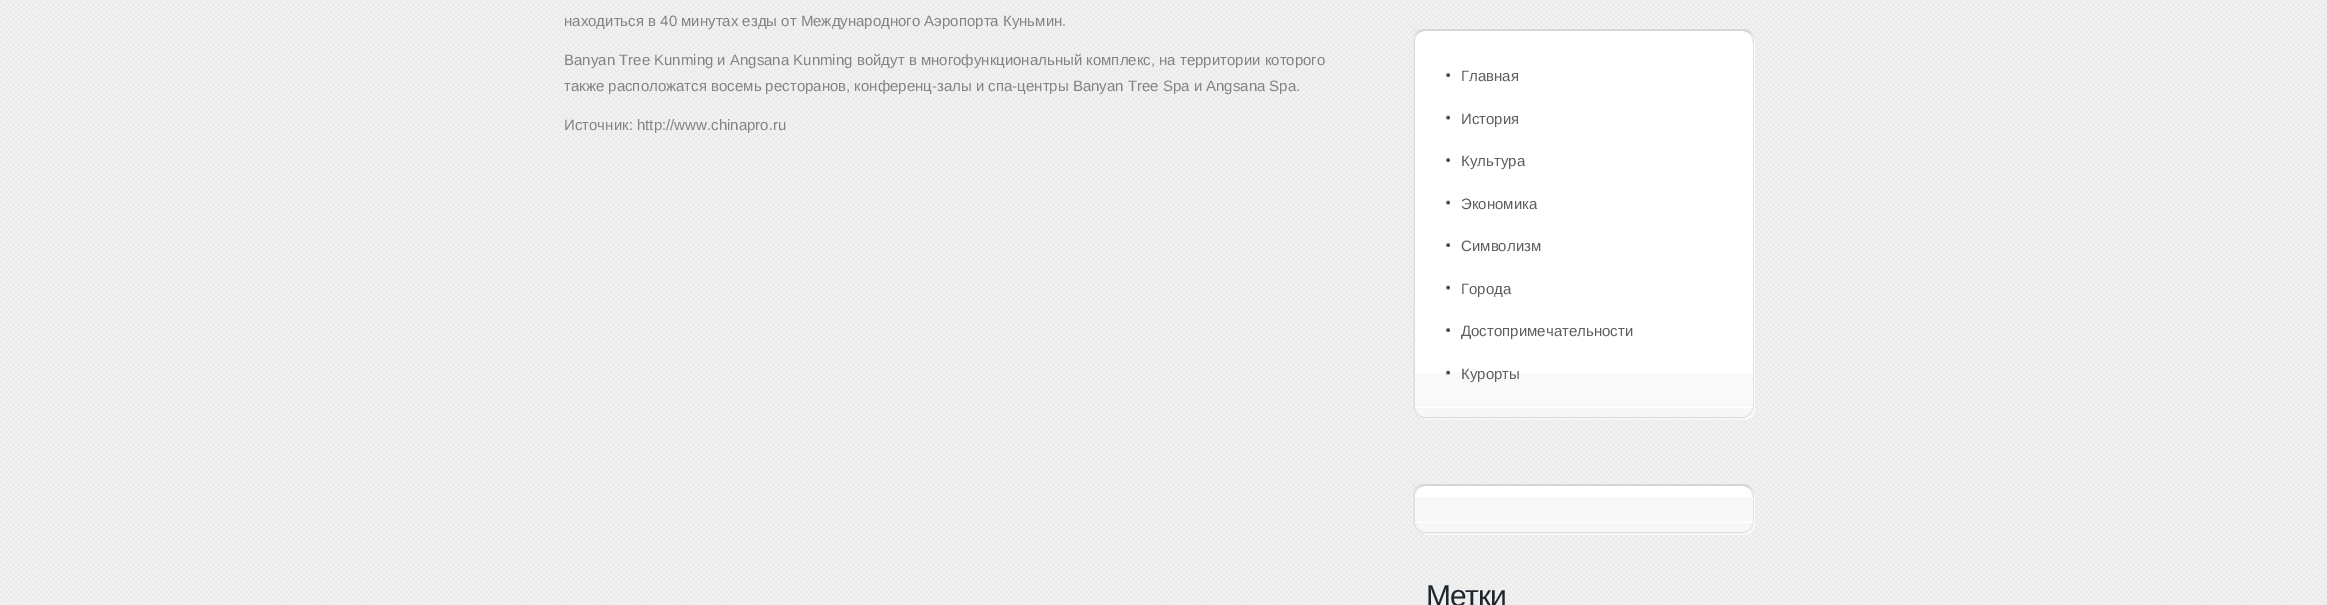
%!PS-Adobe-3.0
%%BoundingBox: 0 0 2327 605
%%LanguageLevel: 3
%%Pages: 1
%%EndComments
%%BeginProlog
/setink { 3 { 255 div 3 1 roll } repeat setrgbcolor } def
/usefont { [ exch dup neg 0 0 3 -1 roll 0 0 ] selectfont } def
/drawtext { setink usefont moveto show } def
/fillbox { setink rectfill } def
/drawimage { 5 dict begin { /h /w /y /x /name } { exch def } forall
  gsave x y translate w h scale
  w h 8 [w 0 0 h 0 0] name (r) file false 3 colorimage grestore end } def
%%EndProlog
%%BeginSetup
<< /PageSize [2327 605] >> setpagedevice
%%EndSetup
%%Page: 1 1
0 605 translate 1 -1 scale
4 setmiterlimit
0 0 2327 605 255 255 255 fillbox
(assets/img1.rgb) 0 0 2327 605 drawimage
(находиться в 40 минутах езды от Международного Аэропорта Куньмин.) 564 26 /LiberationSans-Regular 15 131 131 131 drawtext
(Banyan Tree Kunming и Angsana Kunming войдут в многофункциональный комплекс, на территории которого) 564 65 /LiberationSans-Regular 15 131 131 131 drawtext
(также расположатся восемь ресторанов, конференц-залы и спа-центры Banyan Tree Spa и Angsana Spa.) 564 91 /LiberationSans-Regular 15 131 131 131 drawtext
(Источник: http://www.chinapro.ru) 564 130 /LiberationSans-Regular 15 131 131 131 drawtext
(assets/img2.rgb) 1413 29 342 13 drawimage
(assets/img3.rgb) 1413 307 342 113 drawimage
(assets/img4.rgb) 1413 42 342 365 drawimage
1415 43 338 365 255 255 255 fillbox
1415 373 338 34 249 249 249 fillbox
(assets/img5.rgb) 1446 73 4 4 drawimage
(Главная) 1461 81 /LiberationSans-Regular 15 94 94 94 drawtext
(assets/img6.rgb) 1446 115 4 5 drawimage
(История) 1461 124 /LiberationSans-Regular 15 94 94 94 drawtext
(assets/img5.rgb) 1446 158 4 4 drawimage
(Культура) 1461 166 /LiberationSans-Regular 15 94 94 94 drawtext
(assets/img6.rgb) 1446 200 4 5 drawimage
(Экономика) 1461 209 /LiberationSans-Regular 15 94 94 94 drawtext
(assets/img5.rgb) 1446 243 4 4 drawimage
(Символизм) 1461 251 /LiberationSans-Regular 15 94 94 94 drawtext
(assets/img6.rgb) 1446 285 4 5 drawimage
(Города) 1461 294 /LiberationSans-Regular 15 94 94 94 drawtext
(assets/img5.rgb) 1446 328 4 4 drawimage
(Достопримечательности) 1461 336 /LiberationSans-Regular 15 94 94 94 drawtext
(assets/img7.rgb) 1446 370 4 5 drawimage
(Курорты) 1461 379 /LiberationSans-Regular 15 94 94 94 drawtext
(assets/img2.rgb) 1413 484 342 13 drawimage
(assets/img8.rgb) 1413 497 342 38 drawimage
(assets/img9.rgb) 1413 497 2 25 drawimage
1415 522 338 1 255 255 255 fillbox
1415 497 338 25 248 248 248 fillbox
/LiberationSans-Regular 30 usefont
31 38 45 setink
1426 606 moveto -1.25 0 (Метки) ashow
showpage
%%EOF
